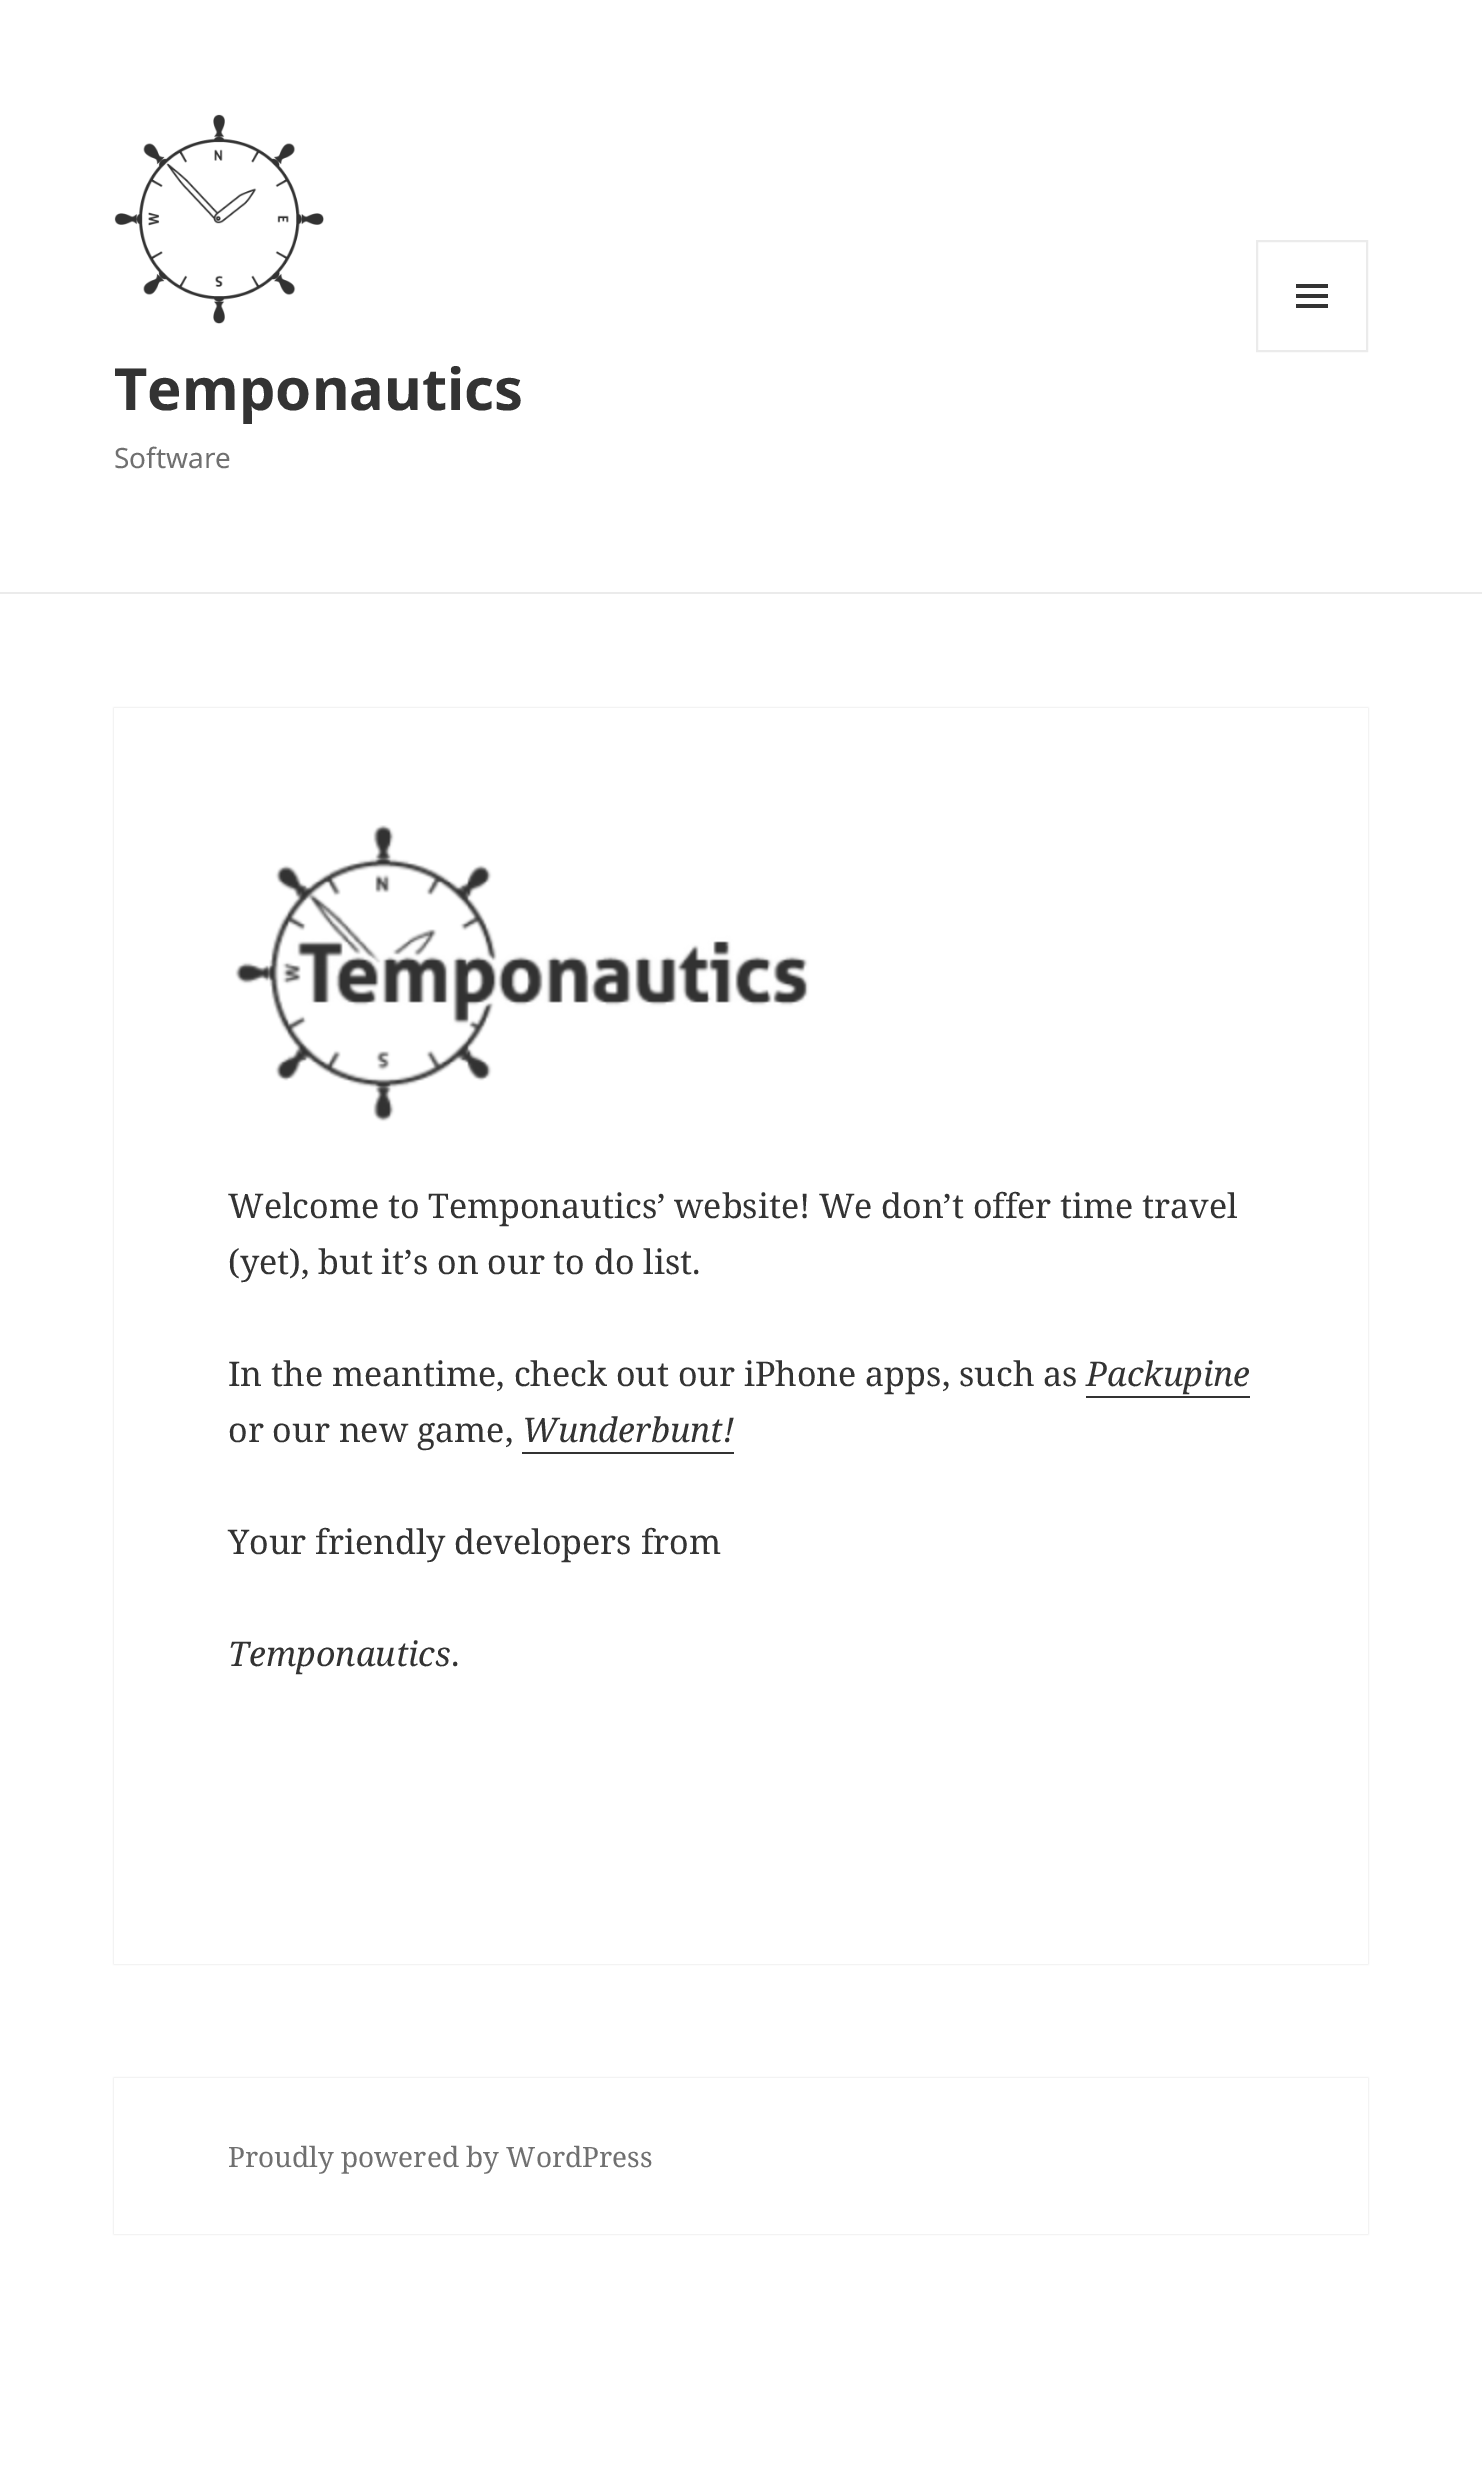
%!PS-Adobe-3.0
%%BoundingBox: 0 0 1482 2479
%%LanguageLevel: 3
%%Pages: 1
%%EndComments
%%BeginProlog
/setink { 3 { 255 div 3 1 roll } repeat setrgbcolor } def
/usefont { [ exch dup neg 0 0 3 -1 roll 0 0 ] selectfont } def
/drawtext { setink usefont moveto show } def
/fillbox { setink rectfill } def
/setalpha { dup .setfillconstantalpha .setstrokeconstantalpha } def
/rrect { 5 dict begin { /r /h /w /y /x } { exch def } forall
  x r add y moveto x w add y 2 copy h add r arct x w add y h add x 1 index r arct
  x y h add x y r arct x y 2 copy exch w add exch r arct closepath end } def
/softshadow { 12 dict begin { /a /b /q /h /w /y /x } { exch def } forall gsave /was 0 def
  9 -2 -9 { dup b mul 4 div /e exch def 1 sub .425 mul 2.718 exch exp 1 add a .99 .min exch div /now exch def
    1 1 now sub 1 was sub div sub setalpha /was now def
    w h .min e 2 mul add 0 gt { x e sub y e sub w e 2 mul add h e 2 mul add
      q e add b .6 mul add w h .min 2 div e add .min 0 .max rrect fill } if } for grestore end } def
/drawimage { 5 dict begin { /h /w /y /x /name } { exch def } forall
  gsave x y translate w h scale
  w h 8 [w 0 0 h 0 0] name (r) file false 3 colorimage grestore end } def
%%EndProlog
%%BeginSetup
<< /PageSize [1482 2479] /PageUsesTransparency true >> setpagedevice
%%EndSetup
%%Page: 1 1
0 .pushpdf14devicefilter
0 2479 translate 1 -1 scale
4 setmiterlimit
0 0 1482 2479 255 255 255 fillbox
0 592 1482 2 235 235 235 fillbox
(assets/img1.rgb) 114 114 210 210 drawimage
2 setlinewidth
1257 241 110 110 rectstroke
(assets/img2.rgb) 1296 284 32 24 drawimage
(Temponautics) 114 410 /NotoSans-Bold 58 51 51 51 drawtext
(Software) 114 468 /NotoSans-Regular 28 112 112 112 drawtext
gsave
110 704 moveto 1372 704 lineto 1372 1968 lineto 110 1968 lineto closepath 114 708 moveto 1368 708 lineto 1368 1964 lineto 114 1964 lineto closepath eoclip newpath
0 0 0 setink
114 708 1254 1256 0 1 0.15 softshadow
grestore
(assets/img3.rgb) 235 825 574 297 drawimage
/NotoSerif-Regular 34 usefont
51 51 51 setink
228 1218 moveto -0.25 0 32 (Welcome to Temponautics’ website! We don’t offer time travel) widthshow
(\(yet\), but it’s on our to do list.) 228 1274 /NotoSerif-Regular 34 51 51 51 drawtext
(In the meantime, check out our iPhone apps, such as) 228 1386 /NotoSerif-Regular 34 51 51 51 drawtext
(Packupine) 1086 1386 /NotoSerif-Italic 34 51 51 51 drawtext
1086 1396 164 2 51 51 51 fillbox
(or our new game,) 228 1442 /NotoSerif-Regular 34 51 51 51 drawtext
(Wunderbunt!) 522 1442 /NotoSerif-Italic 34 51 51 51 drawtext
522 1452 212 2 51 51 51 fillbox
(Your friendly developers from) 228 1554 /NotoSerif-Regular 34 51 51 51 drawtext
(Temponautics) 228 1666 /NotoSerif-Italic 34 51 51 51 drawtext
(.) 451 1666 /NotoSerif-Regular 34 51 51 51 drawtext
gsave
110 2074 moveto 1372 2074 lineto 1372 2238 lineto 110 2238 lineto closepath 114 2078 moveto 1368 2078 lineto 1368 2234 lineto 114 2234 lineto closepath eoclip newpath
0 0 0 setink
114 2078 1254 156 0 1 0.15 softshadow
grestore
(Proudly powered by WordPress) 228 2167 /NotoSerif-Regular 28 112 112 112 drawtext
.poppdf14devicefilter showpage
%%EOF
